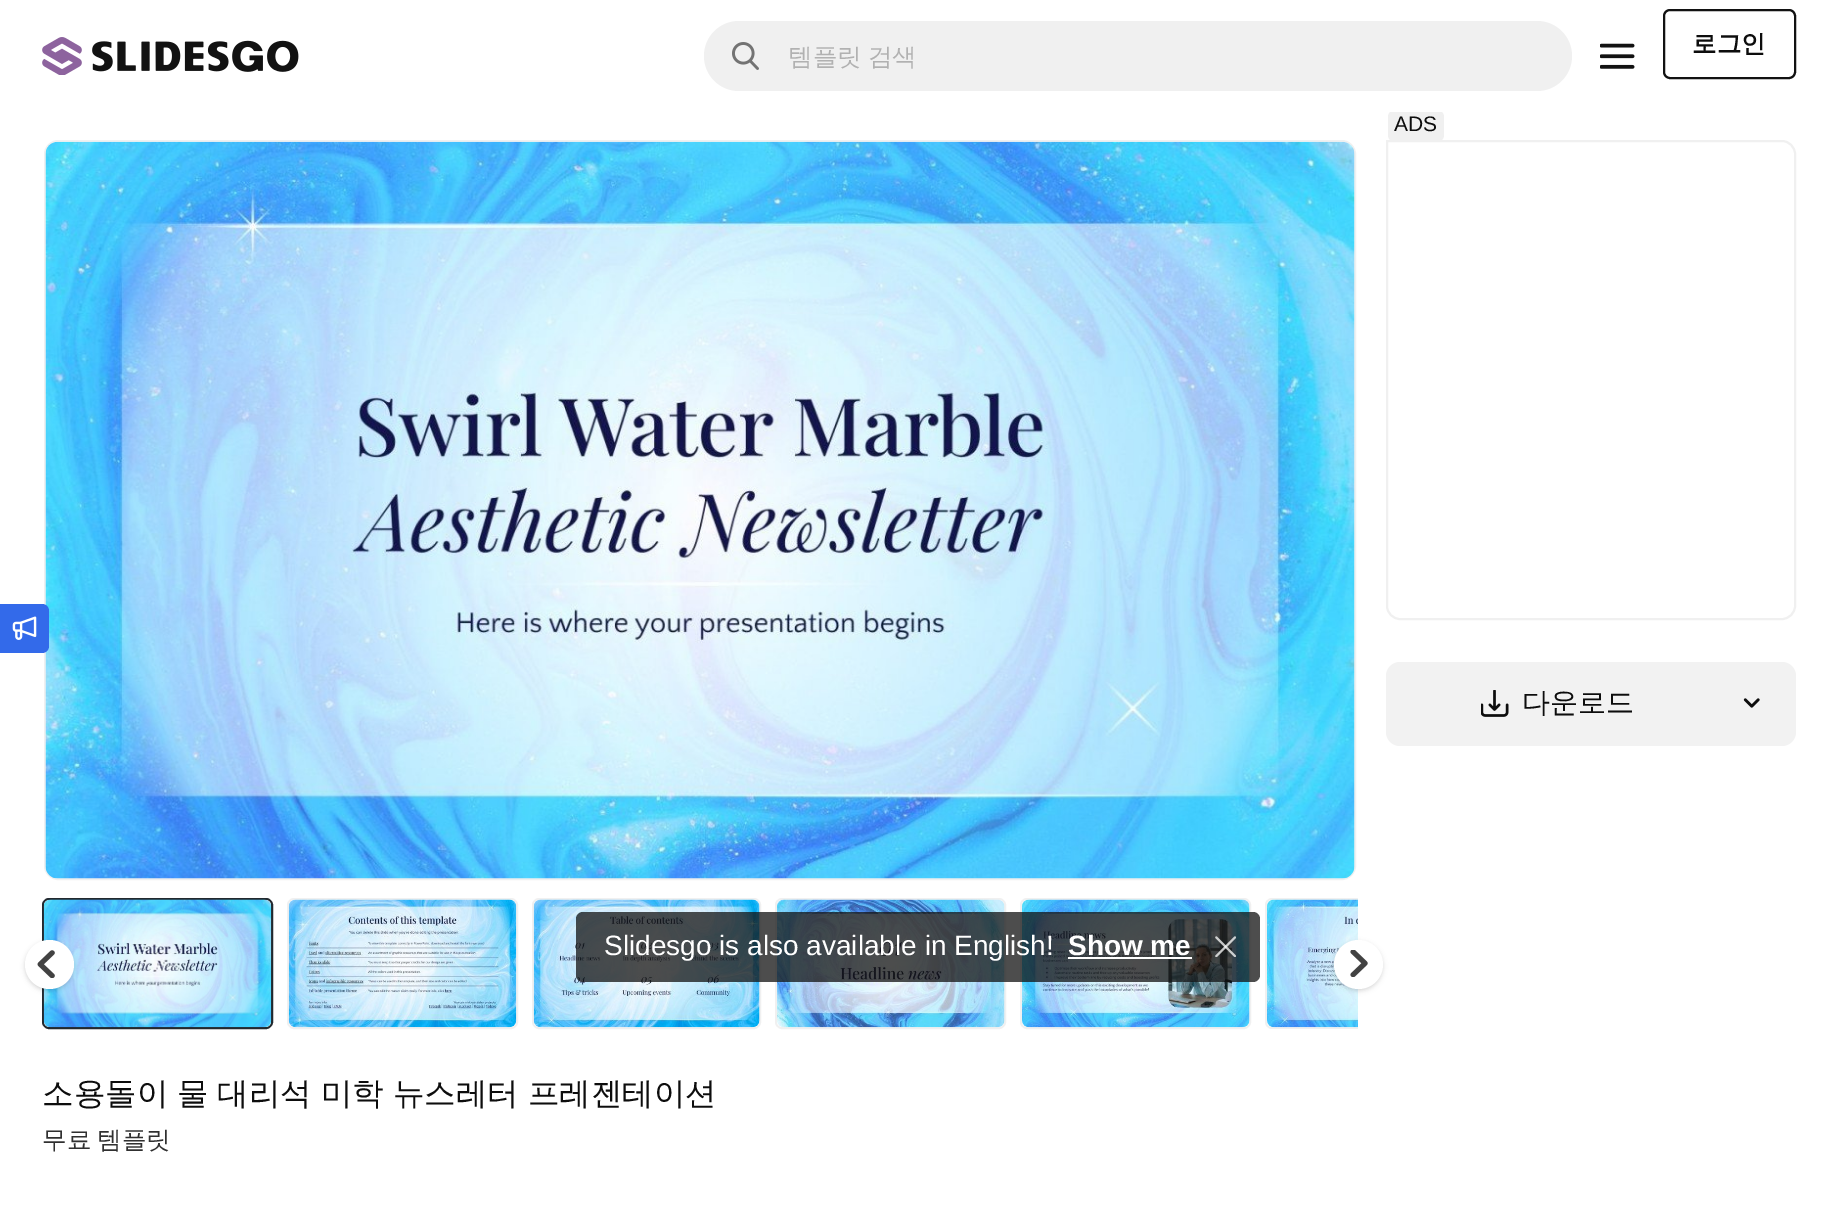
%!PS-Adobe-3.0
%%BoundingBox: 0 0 1837 1205
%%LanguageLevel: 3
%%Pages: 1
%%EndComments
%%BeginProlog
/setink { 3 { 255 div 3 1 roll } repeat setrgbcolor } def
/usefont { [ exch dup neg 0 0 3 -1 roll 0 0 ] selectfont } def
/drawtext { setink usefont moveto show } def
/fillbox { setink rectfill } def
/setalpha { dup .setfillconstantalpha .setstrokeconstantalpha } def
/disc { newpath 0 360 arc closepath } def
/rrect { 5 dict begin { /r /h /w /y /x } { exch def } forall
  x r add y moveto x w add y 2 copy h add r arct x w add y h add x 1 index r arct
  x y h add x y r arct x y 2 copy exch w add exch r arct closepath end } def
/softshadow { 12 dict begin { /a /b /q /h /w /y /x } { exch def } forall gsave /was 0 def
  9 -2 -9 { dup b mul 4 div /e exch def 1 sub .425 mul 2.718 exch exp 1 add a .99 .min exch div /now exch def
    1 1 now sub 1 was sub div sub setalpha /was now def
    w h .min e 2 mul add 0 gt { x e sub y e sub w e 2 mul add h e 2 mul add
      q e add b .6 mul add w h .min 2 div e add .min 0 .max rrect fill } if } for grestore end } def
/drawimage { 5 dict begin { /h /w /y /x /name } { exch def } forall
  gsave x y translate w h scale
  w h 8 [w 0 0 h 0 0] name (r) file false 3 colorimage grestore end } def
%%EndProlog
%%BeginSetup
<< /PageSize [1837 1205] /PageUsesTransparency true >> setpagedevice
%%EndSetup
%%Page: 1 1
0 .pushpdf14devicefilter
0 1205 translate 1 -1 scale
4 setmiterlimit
0 0 1837 1205 255 255 255 fillbox
240 240 240 setink
2 setlinewidth
1387 141 moveto 1782 141 lineto 1789 141 1795 147 1795 154 curveto 1795 606 lineto 1795 613 1789 619 1782 619 curveto 1400 619 lineto 1393 619 1387 613 1387 606 curveto closepath stroke
1388 110 56 32 7 rrect fill
1390 110 52 2 255 255 255 fillbox
(assets/img1.rgb) 42 37 257 38 drawimage
240 240 240 setink
704 21 868 70 35 rrect fill
(assets/img2.rgb) 732 42 27 28 drawimage
/WenQuanYiZenHei-Medium 24.5 usefont
177 177 177 setink
788 65 moveto -1 0 32 (템플릿 검색) widthshow
(assets/img3.rgb) 1600 43 35 26 drawimage
18 18 18 setink
1664 10 131 68 6 rrect stroke
(로그인) 1692 52 /WenQuanYiZenHei-Bold 24.5 13 13 13 drawtext
240 240 240 setink
45 141 1310 738 13 rrect stroke
(assets/img7.rgb) 45 141 1310 738 drawimage
51 106 234 setink
0 604 moveto 42 604 lineto 46 604 49 607 49 611 curveto 49 646 lineto 49 650 46 653 42 653 curveto 0 653 lineto closepath fill
(assets/img4.rgb) 12 616 25 24 drawimage
(ADS) 1394 131 /LiberationSans-Regular 21 13 13 13 drawtext
242 242 242 setink
1386 662 410 84 14 rrect fill
(assets/img5.rgb) 1481 690 28 27 drawimage
(다운로드) 1522 712 /WenQuanYiZenHei-Medium 28 13 13 13 drawtext
(assets/img6.rgb) 1743 698 17 10 drawimage
34 41 47 setink
43 899 229 129 6 rrect stroke
(assets/img8.rgb) 43 899 229 129 drawimage
240 240 240 setink
288 899 229 129 6 rrect stroke
(assets/img9.rgb) 288 899 229 129 drawimage
533 899 227 129 6 rrect stroke
(assets/img10.rgb) 533 899 227 129 drawimage
776 899 229 129 6 rrect stroke
(assets/img11.rgb) 777 899 228 129 drawimage
1021 899 229 129 6 rrect stroke
(assets/img12.rgb) 1022 899 228 129 drawimage
gsave
42 898 1316 131 rectclip
1266 899 229 129 6 rrect stroke
grestore
(assets/img13.rgb) 1267 899 91 129 drawimage
0 0 0 setink
26 943 46 46 23 2 0.1 softshadow
25 942 49 49 24.5 2.5 0.1 softshadow
255 255 255 setink
49.5 964.5 24.5 disc fill
(assets/img14.rgb) 37 950 18 28 drawimage
0 0 0 setink
1335 943 46 46 23 2 0.1 softshadow
1334 942 49 49 24.5 2.5 0.1 softshadow
255 255 255 setink
1358.5 964.5 24.5 disc fill
(assets/img15.rgb) 1350 950 18 27 drawimage
/WenQuanYiZenHei-Medium 31.5 usefont
13 13 13 setink
42 1104 moveto -0.5 0 32 (소용돌이 물 대리석 미학 뉴스레터 프레젠테이션) widthshow
/WenQuanYiZenHei-Medium 24.5 usefont
48 48 48 setink
42 1148 moveto -1 0 32 (무료 템플릿) widthshow
0.75 setalpha
18 18 18 setink
576 912 684 70 7 rrect fill
1 setalpha
(Slidesgo is also available in English!) 604 955 /LiberationSans-Regular 28 255 255 255 drawtext
(Show me) 1068 955 /LiberationSans-Bold 28 255 255 255 drawtext
1068 957 124 2 255 255 255 fillbox
(assets/img16.rgb) 1215 936 21 21 drawimage
.poppdf14devicefilter showpage
%%EOF
